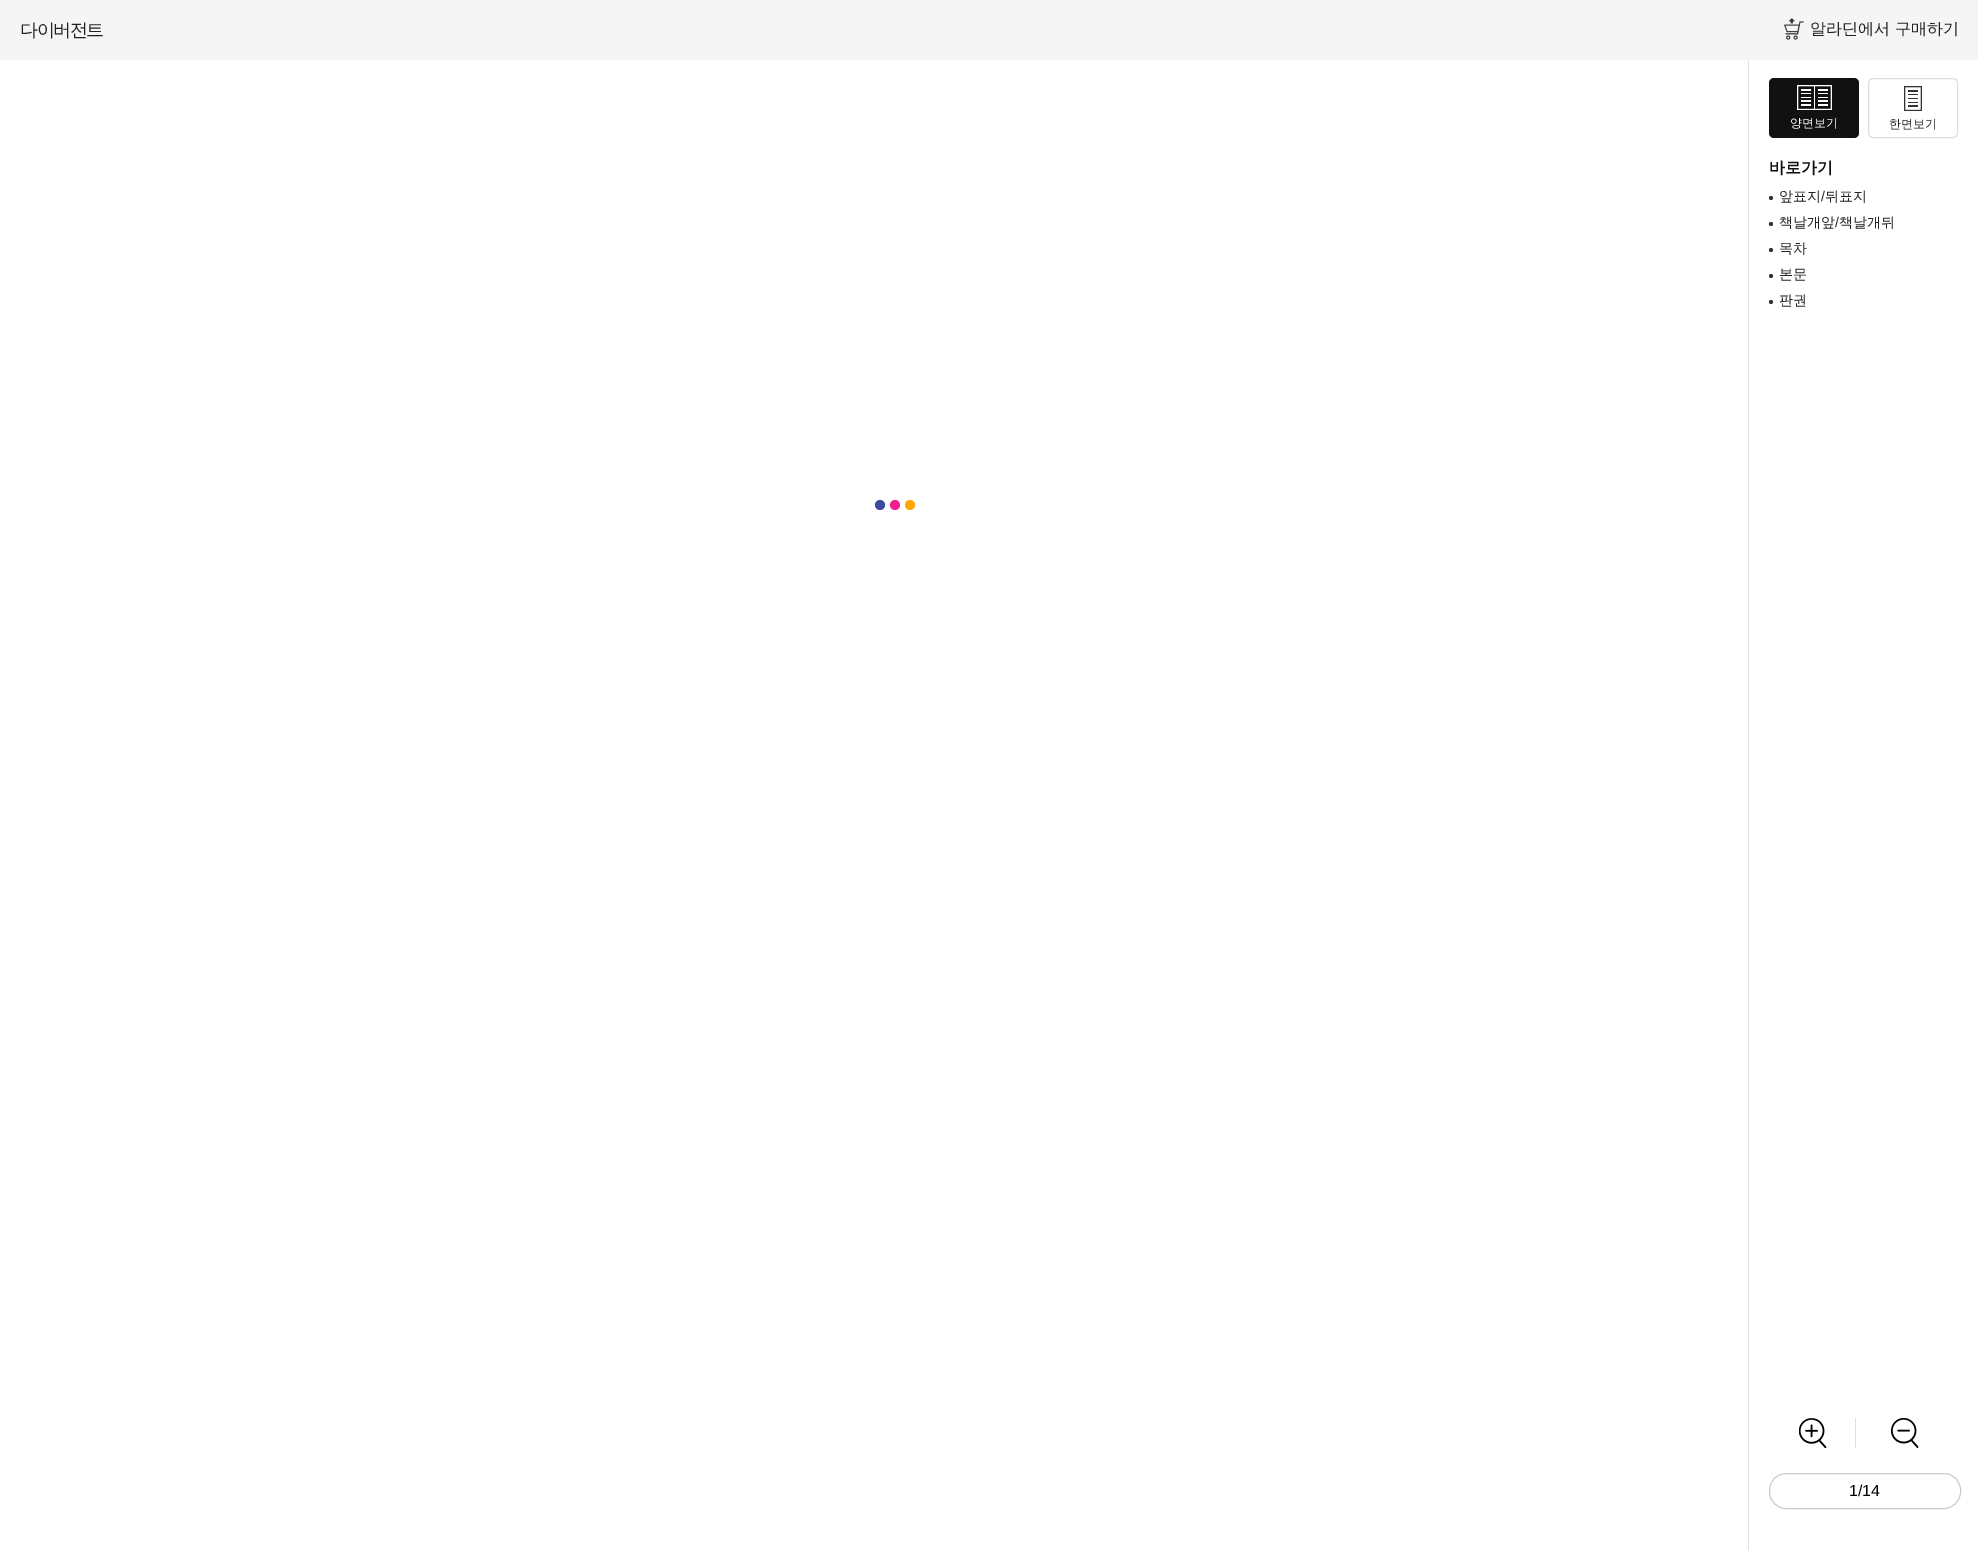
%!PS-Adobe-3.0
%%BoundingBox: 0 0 1978 1550
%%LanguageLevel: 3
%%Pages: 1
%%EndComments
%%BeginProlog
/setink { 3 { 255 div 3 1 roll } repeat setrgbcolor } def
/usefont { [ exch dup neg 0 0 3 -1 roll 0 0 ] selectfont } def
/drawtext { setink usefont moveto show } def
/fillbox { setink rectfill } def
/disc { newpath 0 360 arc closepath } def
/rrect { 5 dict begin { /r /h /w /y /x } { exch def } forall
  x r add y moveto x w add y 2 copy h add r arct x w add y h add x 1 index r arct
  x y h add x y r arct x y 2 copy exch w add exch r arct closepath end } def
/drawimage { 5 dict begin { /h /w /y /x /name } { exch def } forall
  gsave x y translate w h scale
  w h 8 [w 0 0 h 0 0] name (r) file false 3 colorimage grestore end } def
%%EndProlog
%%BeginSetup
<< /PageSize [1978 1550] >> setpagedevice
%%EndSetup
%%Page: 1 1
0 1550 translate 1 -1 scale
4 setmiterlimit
0 0 1978 1550 255 255 255 fillbox
0 0 1978 60 245 245 245 fillbox
/WenQuanYiZenHei-Medium 18 usefont
34 34 34 setink
20 36 moveto -1.5 0 (다이버전트) ashow
(assets/img1.rgb) 1784 18 20 22 drawimage
(알라딘에서 구매하기) 1810 34 /WenQuanYiZenHei-Medium 16 34 34 34 drawtext
1748 60 1 1490 226 226 226 fillbox
17 17 17 setink
1769 78 90 60 5 rrect fill
(assets/img2.rgb) 1797 85 35 25 drawimage
(양면보기) 1790 127 /WenQuanYiZenHei-Medium 12 255 255 255 drawtext
221 221 221 setink
1868.5 78.5 89 59 4.5 rrect stroke
(assets/img3.rgb) 1904 86 18 25 drawimage
(한면보기) 1889 128 /WenQuanYiZenHei-Medium 12 34 34 34 drawtext
(바로가기) 1769 173 /WenQuanYiZenHei-Bold 16 17 17 17 drawtext
51 51 51 setink
1771 198 2 disc fill
(앞표지) 1779 201 /WenQuanYiZenHei-Medium 14 34 34 34 drawtext
(/) 1821 201 /LiberationSans-Regular 14 34 34 34 drawtext
(뒤표지) 1825 201 /WenQuanYiZenHei-Medium 14 34 34 34 drawtext
51 51 51 setink
1771 224 2 disc fill
(책날개앞) 1779 227 /WenQuanYiZenHei-Medium 14 34 34 34 drawtext
(/) 1835 227 /LiberationSans-Regular 14 34 34 34 drawtext
(책날개뒤) 1839 227 /WenQuanYiZenHei-Medium 14 34 34 34 drawtext
51 51 51 setink
1771 250 2 disc fill
(목차) 1779 253 /WenQuanYiZenHei-Medium 14 34 34 34 drawtext
51 51 51 setink
1771 276 2 disc fill
(본문) 1779 279 /WenQuanYiZenHei-Medium 14 34 34 34 drawtext
51 51 51 setink
1771 302 2 disc fill
(판권) 1779 305 /WenQuanYiZenHei-Medium 14 34 34 34 drawtext
(assets/img4.rgb) 1799 1418 28 31 drawimage
1855 1418 1 30 223 223 223 fillbox
(assets/img5.rgb) 1891 1418 28 30 drawimage
204 204 204 setink
1769.5 1473.5 191 35 16.5 rrect stroke
(1/14) 1849 1496 /LiberationSans-Regular 16 0 0 0 drawtext
59 73 158 setink
880 505 5 disc fill
242 29 140 setink
895 505 5 disc fill
255 166 0 setink
910 505 5 disc fill
showpage
%%EOF
